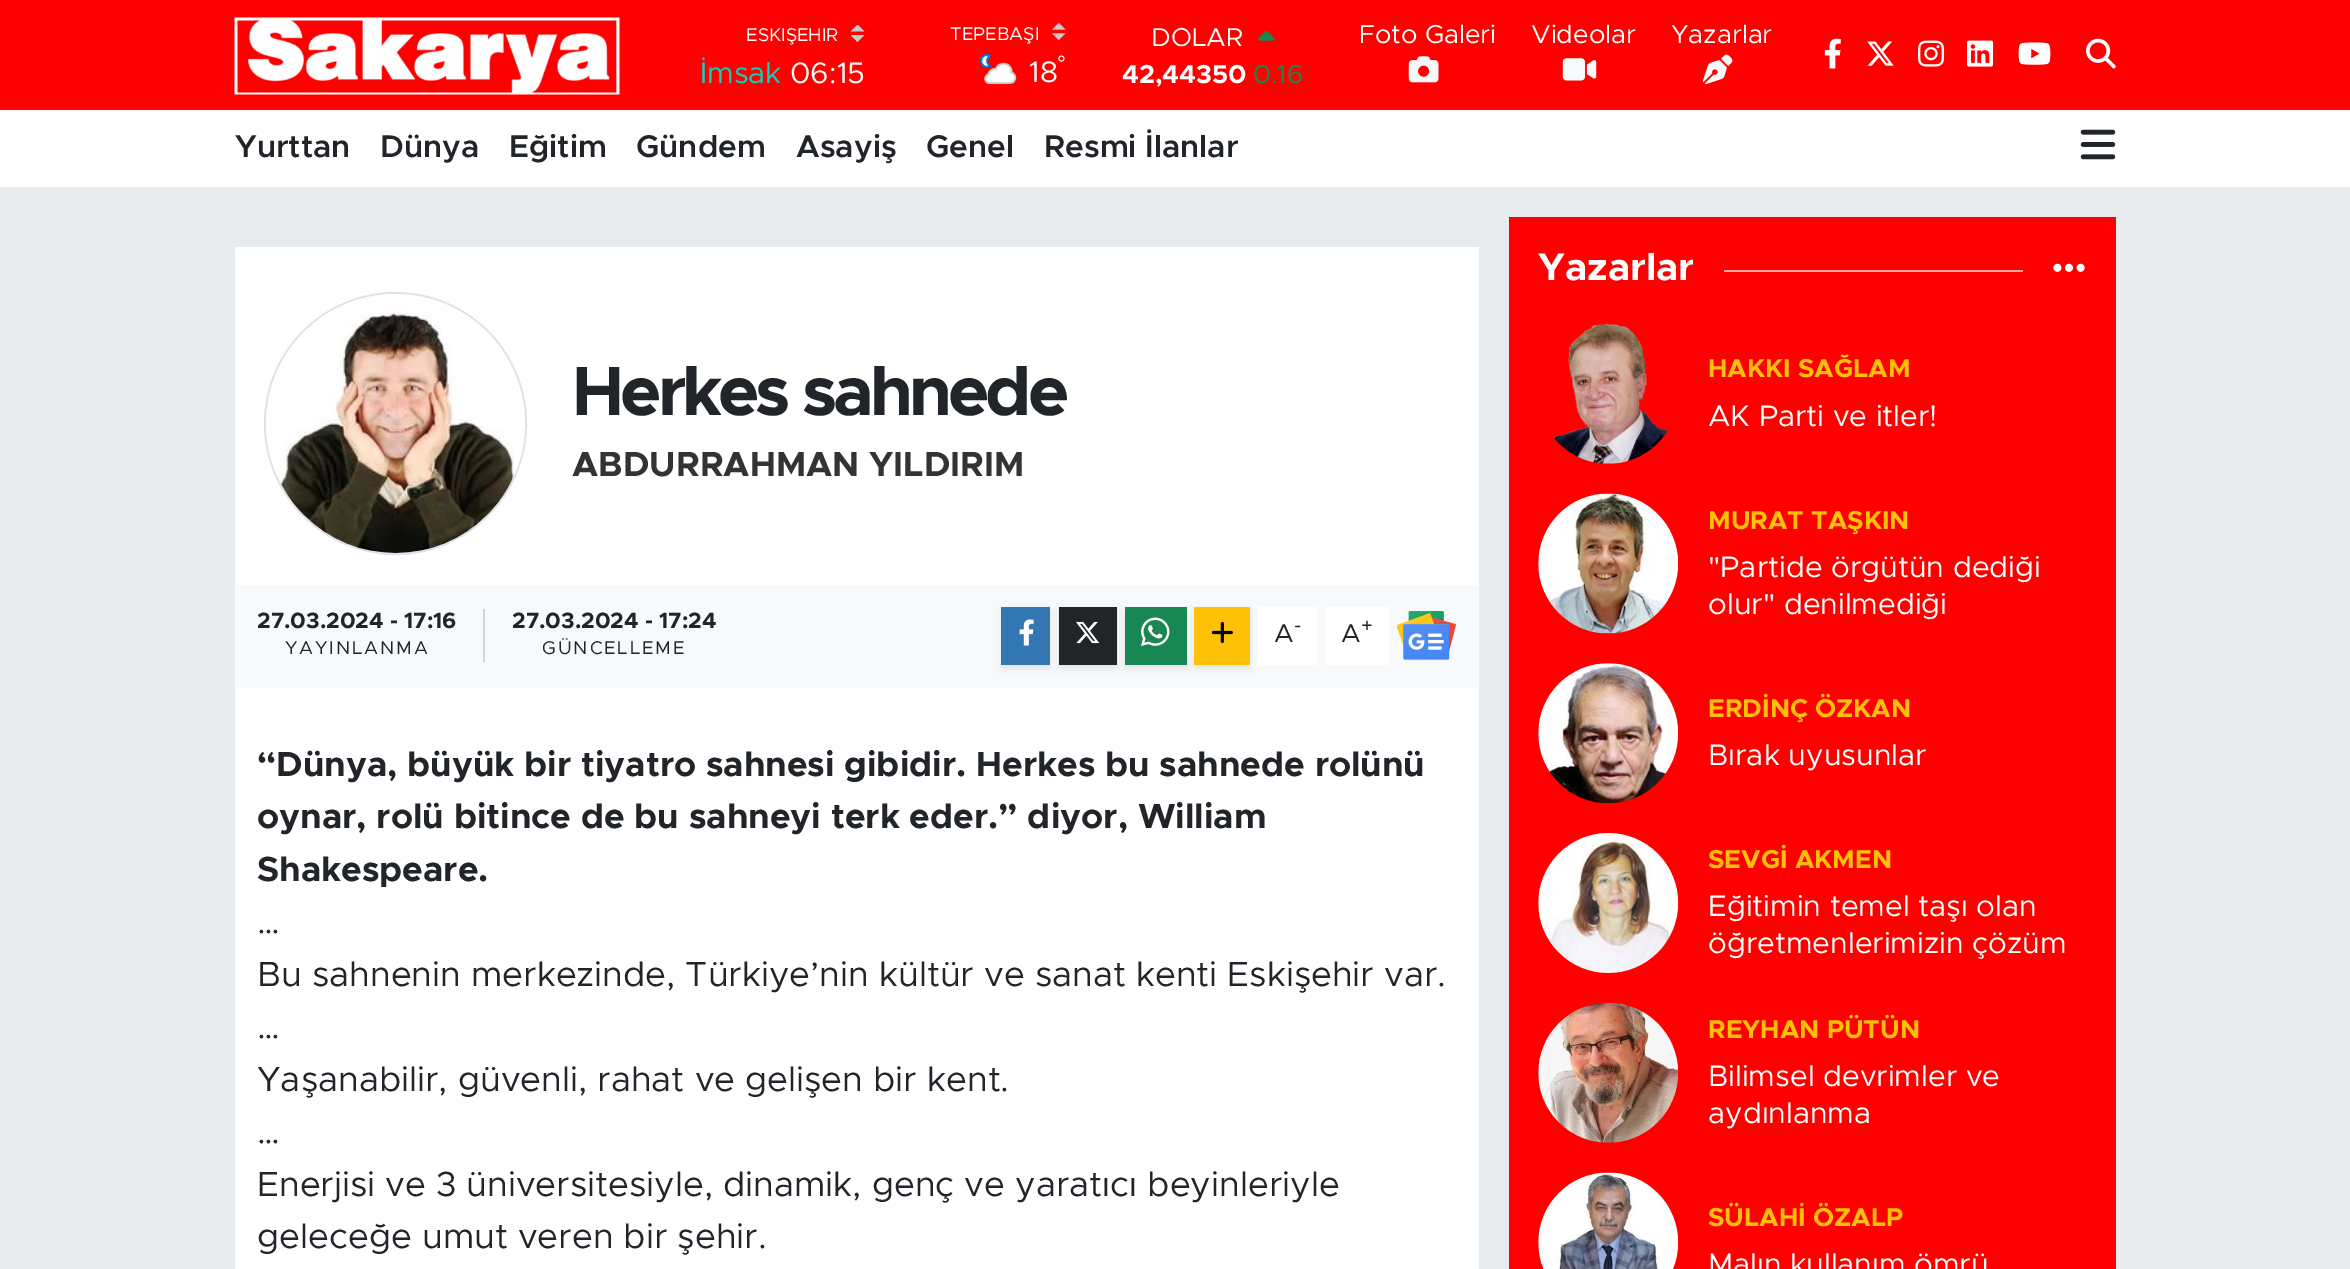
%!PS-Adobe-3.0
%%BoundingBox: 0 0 2350 1269
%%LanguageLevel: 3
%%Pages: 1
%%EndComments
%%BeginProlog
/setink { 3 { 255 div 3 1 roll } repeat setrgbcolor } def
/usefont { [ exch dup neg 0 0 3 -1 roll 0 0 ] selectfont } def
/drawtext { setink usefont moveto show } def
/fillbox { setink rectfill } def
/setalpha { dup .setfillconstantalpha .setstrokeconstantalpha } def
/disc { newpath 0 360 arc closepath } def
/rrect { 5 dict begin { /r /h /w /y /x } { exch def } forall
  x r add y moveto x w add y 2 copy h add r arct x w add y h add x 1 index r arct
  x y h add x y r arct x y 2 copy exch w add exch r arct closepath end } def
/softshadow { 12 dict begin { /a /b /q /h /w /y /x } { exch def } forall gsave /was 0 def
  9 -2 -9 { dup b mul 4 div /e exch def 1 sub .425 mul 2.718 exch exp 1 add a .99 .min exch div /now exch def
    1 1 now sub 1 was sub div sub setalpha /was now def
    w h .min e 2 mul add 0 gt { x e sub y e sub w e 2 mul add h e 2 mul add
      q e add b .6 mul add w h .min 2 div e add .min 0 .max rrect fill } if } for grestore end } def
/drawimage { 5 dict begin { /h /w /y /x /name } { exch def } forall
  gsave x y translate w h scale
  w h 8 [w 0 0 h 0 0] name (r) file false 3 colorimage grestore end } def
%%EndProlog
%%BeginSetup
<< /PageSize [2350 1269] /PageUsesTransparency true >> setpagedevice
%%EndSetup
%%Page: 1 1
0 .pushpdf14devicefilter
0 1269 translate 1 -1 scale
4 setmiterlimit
0 0 2350 1269 233 236 239 fillbox
0 0 2350 110 255 0 0 fillbox
(assets/img1.rgb) 234 17 386 78 drawimage
gsave
851 25 14 17 rectclip
202 202 202 setink
857.5 24.5 moveto 850.5 31.5 lineto 864.5 31.5 lineto closepath 857.5 42 moveto 850.5 35 lineto 864.5 35 lineto closepath fill
grestore
(ESKIŞEHIR) 746 41 /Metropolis-Regular 18.5 255 255 255 drawtext
(İmsak) 700 83 /Metropolis-Regular 29.75 9 210 193 drawtext
(06:15) 790 83 /Metropolis-Regular 29.75 255 255 255 drawtext
(assets/img2.rgb) 1052 23 14 17 drawimage
(TEPEBAŞI) 950 40 /Metropolis-Regular 18.5 255 255 255 drawtext
(assets/img3.rgb) 979 53 38 32 drawimage
(°) 1057 71 /LiberationSans-Regular 22.25 248 249 250 drawtext
(18) 1029 82 /Metropolis-Regular 29.75 255 255 255 drawtext
(DOLAR) 1151 46 /Metropolis-Regular 26 255 255 255 drawtext
(assets/img4.rgb) 1258 31 17 10 drawimage
(42,44350) 1122 83 /Metropolis-Bold 26 255 255 255 drawtext
(0.16) 1253 83 /Metropolis-Regular 26 25 135 84 drawtext
(Foto Galeri) 1359 43 /Metropolis-Regular 26 255 255 255 drawtext
(assets/img5.rgb) 1408 56 31 27 drawimage
(Videolar) 1531 43 /Metropolis-Regular 26 255 255 255 drawtext
(assets/img6.rgb) 1562 58 35 23 drawimage
(Yazarlar) 1671 43 /Metropolis-Regular 26 255 255 255 drawtext
(assets/img7.rgb) 1702 54 31 31 drawimage
(assets/img8.rgb) 1824 38 17 31 drawimage
(assets/img9.rgb) 1867 41 27 25 drawimage
(assets/img10.rgb) 1918 40 27 27 drawimage
(assets/img11.rgb) 1967 40 27 27 drawimage
(assets/img12.rgb) 2018 42 33 23 drawimage
(assets/img13.rgb) 2086 38 30 31 drawimage
0 110 2350 77 255 255 255 fillbox
(Yurttan) 235 157 /Metropolis-SemiBold 31.5 33 37 41 drawtext
(Dünya) 380 157 /Metropolis-SemiBold 31.5 33 37 41 drawtext
(Eğitim) 509 157 /Metropolis-SemiBold 31.5 33 37 41 drawtext
(Gündem) 636 157 /Metropolis-SemiBold 31.5 33 37 41 drawtext
(Asayiş) 796 157 /Metropolis-SemiBold 31.5 33 37 41 drawtext
(Genel) 926 157 /Metropolis-SemiBold 31.5 33 37 41 drawtext
(Resmi İlanlar) 1044 157 /Metropolis-SemiBold 31.5 33 37 41 drawtext
(assets/img14.rgb) 2080 129 36 31 drawimage
235 247 1244 338 255 255 255 fillbox
222 226 230 setink
2 setlinewidth
395.5 423.5 130.5 disc stroke
(assets/img15.rgb) 266 294 259 259 drawimage
/Metropolis-Bold 70 usefont
33 37 41 setink
572 415 moveto -4 0 (Herkes sahnede) ashow
(ABDURRAHMAN YILDIRIM) 572 476 /Metropolis-Bold 35 51 51 51 drawtext
235 585 1244 103 248 249 250 fillbox
483 609 2 53 206 212 218 fillbox
(27.03.2024 - 17:16) 257 628 /Metropolis-Bold 22.25 33 37 41 drawtext
/Metropolis-Regular 18.5 usefont
285 654 moveto 1.9 0 (YAYINLANMA) ashow
(27.03.2024 - 17:24) 512 628 /Metropolis-Bold 22.25 33 37 41 drawtext
/Metropolis-Regular 18.5 usefont
542 654 moveto 1.9 0 (GÜNCELLEME) ashow
0 0 0 setink
1001 611 49 58 0 3.5 0.07 softshadow
1001 607 49 58 50 118 179 fillbox
(assets/img16.rgb) 1019 619 15 27 drawimage
0 0 0 setink
1059 611 58 58 0 3.5 0.07 softshadow
1059 607 58 58 33 37 41 fillbox
(assets/img17.rgb) 1076 621 24 23 drawimage
0 0 0 setink
1125 611 62 58 0 3.5 0.07 softshadow
1125 607 62 58 25 135 84 fillbox
(assets/img18.rgb) 1141 617 29 29 drawimage
1257 607 61 58 255 255 255 fillbox
0 0 0 setink
1194 611 56 58 0 3.5 0.07 softshadow
1194 607 56 58 255 193 7 fillbox
(assets/img19.rgb) 1211 621 22 23 drawimage
(A) 1274 642 /Metropolis-Regular 26 33 37 41 drawtext
(-) 1294 632 /Metropolis-Regular 20 33 37 41 drawtext
1325 607 65 58 255 255 255 fillbox
(A) 1341 642 /Metropolis-Regular 26 33 37 41 drawtext
(+) 1361 632 /Metropolis-Regular 20 33 37 41 drawtext
(assets/img20.rgb) 1397 611 59 49 drawimage
235 688 1244 581 255 255 255 fillbox
(“Dünya, büyük bir tiyatro sahnesi gibidir. Herkes bu sahnede rolünü) 257 776 /Metropolis-Bold 35 33 37 41 drawtext
(oynar, rolü bitince de bu sahneyi terk eder.” diyor, William) 257 828 /Metropolis-Bold 35 33 37 41 drawtext
(Shakespeare.) 257 881 /Metropolis-Bold 35 33 37 41 drawtext
(…) 257 933 /Metropolis-Regular 35 33 37 41 drawtext
(Bu sahnenin merkezinde, Türkiye’nin kültür ve sanat kenti Eskişehir var.) 257 986 /Metropolis-Regular 35 33 37 41 drawtext
(…) 257 1038 /Metropolis-Regular 35 33 37 41 drawtext
(Yaşanabilir, güvenli, rahat ve gelişen bir kent.) 257 1091 /Metropolis-Regular 35 33 37 41 drawtext
(…) 257 1143 /Metropolis-Regular 35 33 37 41 drawtext
(Enerjisi ve 3 üniversitesiyle, dinamik, genç ve yaratıcı beyinleriyle) 257 1196 /Metropolis-Regular 35 33 37 41 drawtext
(geleceğe umut veren bir şehir.) 257 1248 /Metropolis-Regular 35 33 37 41 drawtext
1509 217 607 1052 255 0 0 fillbox
(Yazarlar) 1538 280 /Metropolis-Bold 38.5 255 255 255 drawtext
1724 270 299 2 244 167 167 fillbox
(assets/img21.rgb) 2053 263 32 9 drawimage
(assets/img22.rgb) 1554 323 114 141 drawimage
(HAKKI SAĞLAM) 1708 377 /Metropolis-Bold 26 255 193 7 drawtext
(AK Parti ve itler!) 1708 426 /Metropolis-Regular 29.75 255 255 255 drawtext
(assets/img23.rgb) 1538 493 141 141 drawimage
(MURAT TAŞKIN) 1708 529 /Metropolis-Bold 26 255 193 7 drawtext
("Partide örgütün dediği) 1708 577 /Metropolis-Regular 29.75 255 255 255 drawtext
(olur" denilmediği) 1708 614 /Metropolis-Regular 29.75 255 255 255 drawtext
(assets/img24.rgb) 1538 663 141 141 drawimage
(ERDİNÇ ÖZKAN) 1708 717 /Metropolis-Bold 26 255 193 7 drawtext
(Bırak uyusunlar) 1708 765 /Metropolis-Regular 29.75 255 255 255 drawtext
(assets/img25.rgb) 1538 833 141 140 drawimage
(SEVGİ AKMEN) 1708 868 /Metropolis-Bold 26 255 193 7 drawtext
(Eğitimin temel taşı olan) 1708 916 /Metropolis-Regular 29.75 255 255 255 drawtext
(öğretmenlerimizin çözüm) 1708 953 /Metropolis-Regular 29.75 255 255 255 drawtext
(assets/img26.rgb) 1538 1002 141 141 drawimage
(REYHAN PÜTÜN) 1708 1038 /Metropolis-Bold 26 255 193 7 drawtext
(Bilimsel devrimler ve) 1708 1086 /Metropolis-Regular 29.75 255 255 255 drawtext
(aydınlanma) 1708 1123 /Metropolis-Regular 29.75 255 255 255 drawtext
(assets/img27.rgb) 1538 1172 141 97 drawimage
(SÜLAHİ ÖZALP) 1708 1226 /Metropolis-Bold 26 255 193 7 drawtext
(Malın kullanım ömrü) 1708 1274 /Metropolis-Regular 29.75 255 255 255 drawtext
.poppdf14devicefilter showpage
%%EOF
